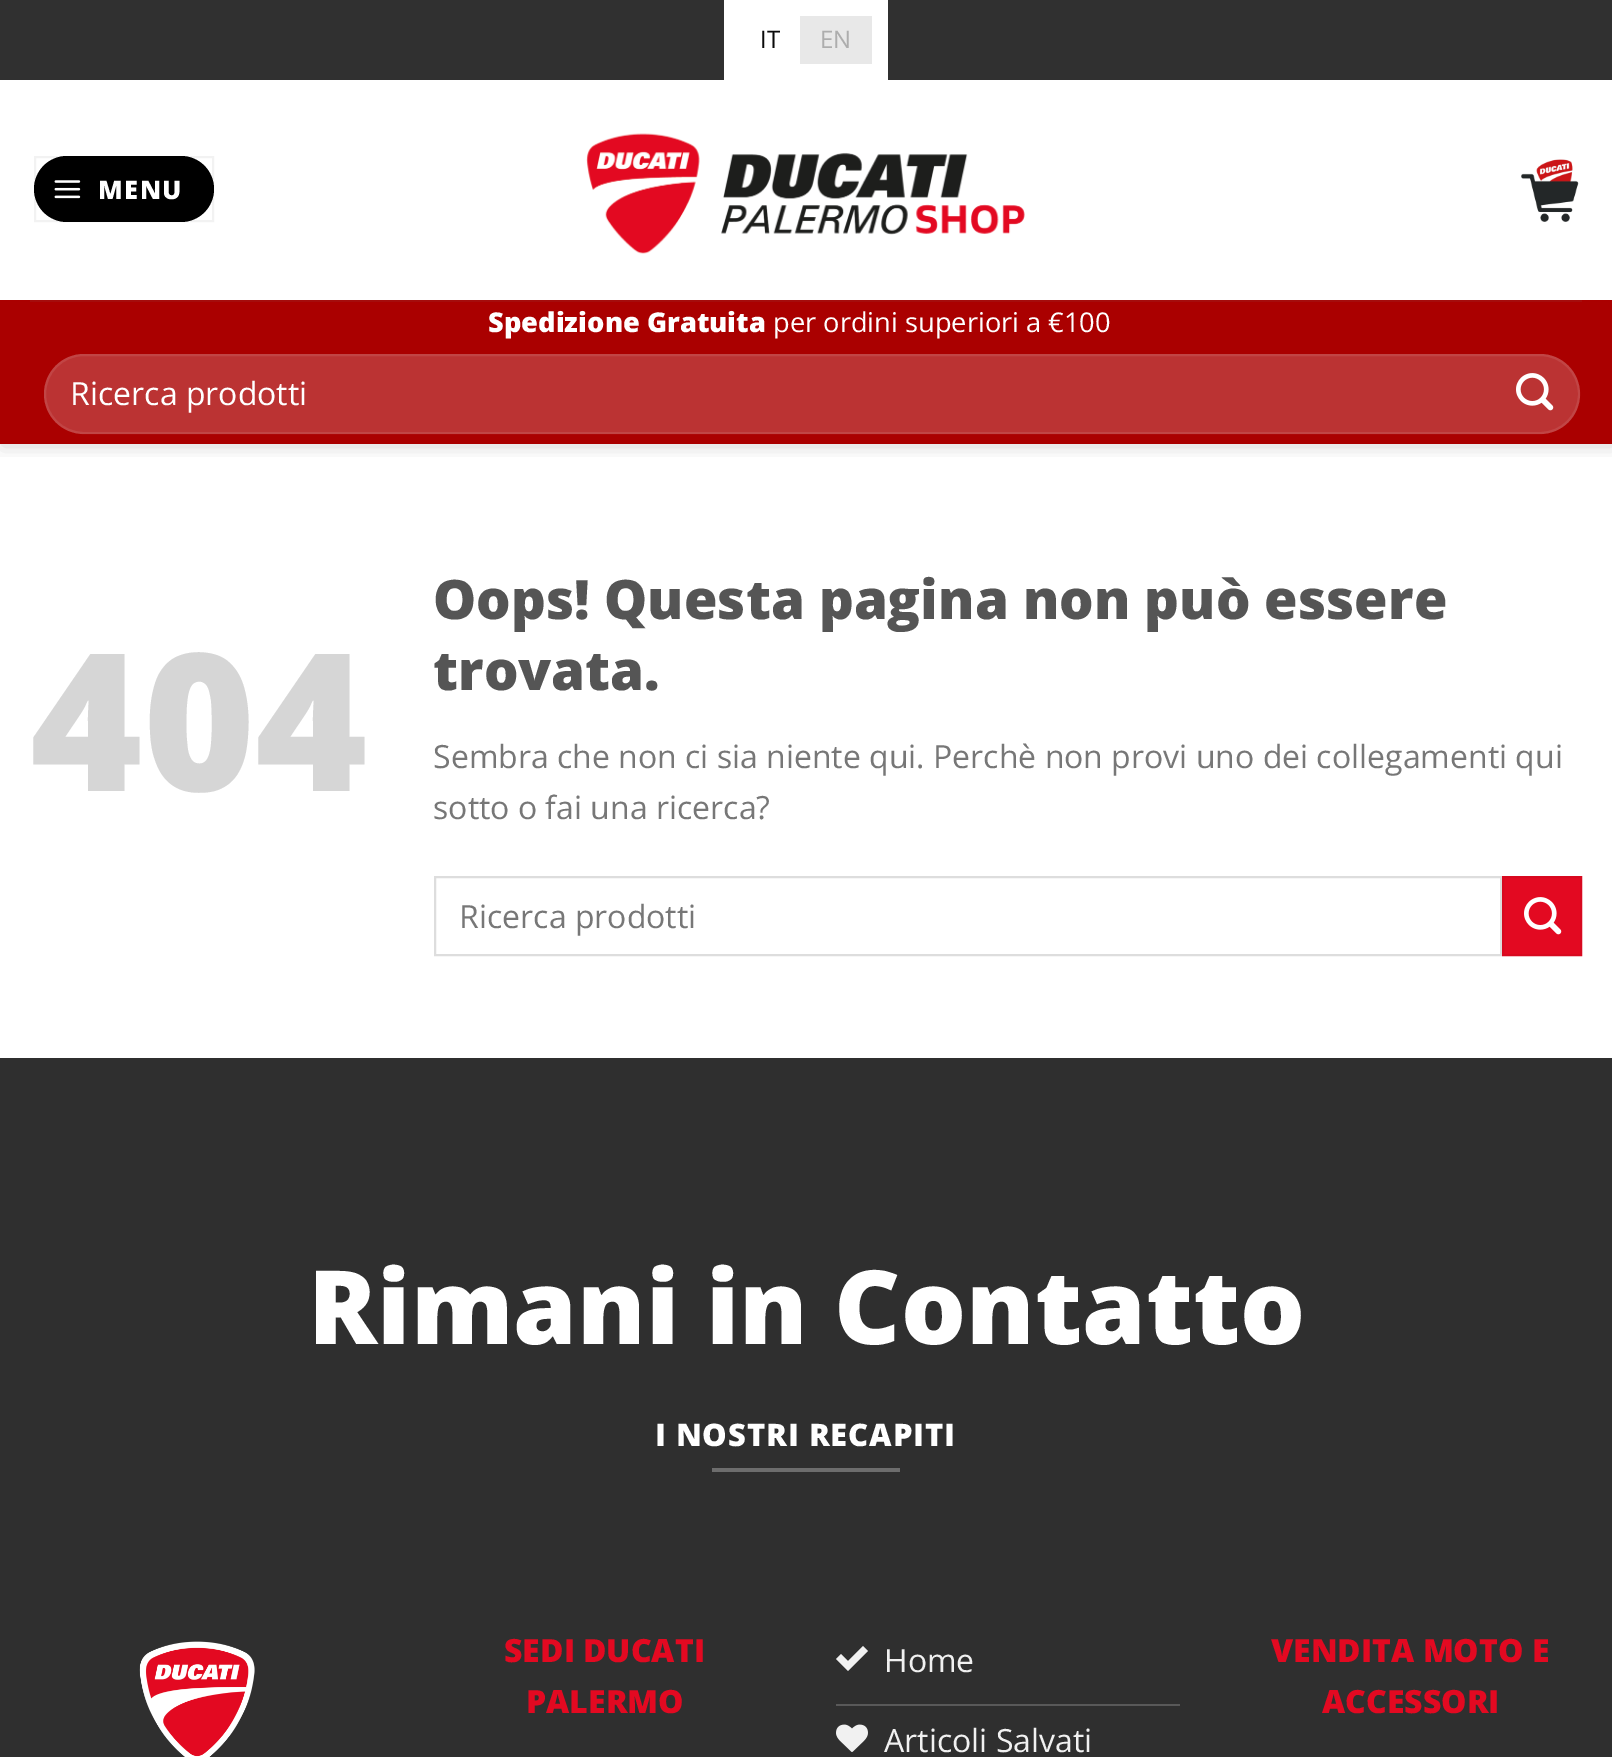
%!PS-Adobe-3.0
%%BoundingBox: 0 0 1612 1757
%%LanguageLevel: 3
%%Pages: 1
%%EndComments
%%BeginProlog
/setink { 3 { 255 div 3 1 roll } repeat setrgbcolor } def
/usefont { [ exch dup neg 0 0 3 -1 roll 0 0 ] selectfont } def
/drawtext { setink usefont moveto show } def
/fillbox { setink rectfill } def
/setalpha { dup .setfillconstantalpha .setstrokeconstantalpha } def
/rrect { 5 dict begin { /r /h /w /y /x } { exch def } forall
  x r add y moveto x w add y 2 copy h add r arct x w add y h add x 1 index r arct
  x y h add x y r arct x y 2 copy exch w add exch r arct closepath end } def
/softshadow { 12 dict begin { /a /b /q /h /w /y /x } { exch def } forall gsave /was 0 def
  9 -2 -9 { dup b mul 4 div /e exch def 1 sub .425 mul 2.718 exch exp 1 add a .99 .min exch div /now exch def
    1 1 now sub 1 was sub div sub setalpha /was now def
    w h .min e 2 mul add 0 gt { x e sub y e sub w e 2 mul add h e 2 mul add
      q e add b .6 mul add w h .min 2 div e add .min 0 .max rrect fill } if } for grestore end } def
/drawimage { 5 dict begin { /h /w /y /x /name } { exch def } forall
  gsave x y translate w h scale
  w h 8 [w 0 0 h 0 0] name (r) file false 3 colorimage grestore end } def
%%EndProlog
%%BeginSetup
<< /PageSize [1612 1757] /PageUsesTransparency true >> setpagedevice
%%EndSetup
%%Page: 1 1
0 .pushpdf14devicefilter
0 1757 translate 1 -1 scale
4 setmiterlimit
0 0 1612 1757 255 255 255 fillbox
gsave
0 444 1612 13 rectclip
0 0 0 setink
2 2 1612 444 0 10 0.15 softshadow
grestore
0 0 1612 80 48 48 48 fillbox
724 0 164 80 255 255 255 fillbox
(IT) 760 48 /OpenSans-Regular 24 10 10 10 drawtext
800 16 72 48 232 232 232 fillbox
(EN) 820 48 /OpenSans-Regular 24 173 173 173 drawtext
0 0 0 setink
34 156 180 66 33 rrect fill
0.05 setalpha
2 setlinewidth
35 157 178 64 rectstroke
1 setalpha
(assets/img1.rgb) 54 180 27 19 drawimage
/OpenSans-ExtraBold 25.5 usefont
255 255 255 setink
98 199 moveto 1.5 0 (MENU) ashow
(assets/img2.rgb) 586 133 439 121 drawimage
(assets/img3.rgb) 1521 159 58 63 drawimage
0 300 1612 144 170 0 0 fillbox
30 300 1552 2 165 12 12 fillbox
(Spedizione Gratuita) 488 332 /OpenSans-ExtraBold 27.25 255 255 255 drawtext
(per ordini superiori a €100) 773 332 /OpenSans-Regular 27.25 255 255 255 drawtext
187 51 51 setink
44 354 1536 80 40 rrect fill
0.09 setalpha
255 255 255 setink
45 355 1534 78 39 rrect stroke
1 setalpha
(Ricerca prodotti) 70 405 /OpenSans-Regular 32 255 255 255 drawtext
(assets/img4.rgb) 1516 373 38 38 drawimage
(404) 30 791 /OpenSans-ExtraBold 192 214 214 214 drawtext
(Oops! Questa pagina non può essere) 433 619 /OpenSans-ExtraBold 54.4 85 85 85 drawtext
(trovata.) 433 690 /OpenSans-ExtraBold 54.4 85 85 85 drawtext
(Sembra che non ci sia niente qui. Perchè non provi uno dei collegamenti qui) 433 768 /OpenSans-Regular 32 119 119 119 drawtext
(sotto o fai una ricerca?) 433 819 /OpenSans-Regular 32 119 119 119 drawtext
221 221 221 setink
435 877 1066 78 rectstroke
(Ricerca prodotti) 459 928 /OpenSans-Regular 32 119 119 119 drawtext
227 9 33 setink
1503 877 moveto 1581 877 lineto 1581 955 lineto 1503 955 lineto closepath gsave fill grestore
216 9 31 setink
stroke
(assets/img5.rgb) 1524 897 38 38 drawimage
0 1058 1612 699 47 47 47 fillbox
(Rimani in Contatto) 308 1344 /OpenSans-ExtraBold 102.5 255 255 255 drawtext
/OpenSans-ExtraBold 31 usefont
655 1446 moveto 0.9 0 (I NOSTRI RECAPITI) ashow
712 1468 188 4 109 109 109 fillbox
(assets/img6.rgb) 139 1641 116 116 drawimage
(SEDI DUCATI) 504 1662 /OpenSans-ExtraBold 32 227 9 33 drawtext
(PALERMO) 526 1713 /OpenSans-ExtraBold 32 227 9 33 drawtext
836 1704 344 2 89 89 89 fillbox
241 241 241 setink
863 1646 moveto 848 1661 lineto 841 1654 lineto 836 1659 lineto 848 1671 lineto 868 1651 lineto closepath fill
(Home) 884 1672 /OpenSans-Regular 32 241 241 241 drawtext
(assets/img7.rgb) 836 1724 32 28 drawimage
(Articoli Salvati) 884 1752 /OpenSans-Regular 32 241 241 241 drawtext
(VENDITA MOTO E) 1271 1662 /OpenSans-ExtraBold 32 227 9 33 drawtext
(ACCESSORI) 1322 1713 /OpenSans-ExtraBold 32 227 9 33 drawtext
.poppdf14devicefilter showpage
%%EOF
